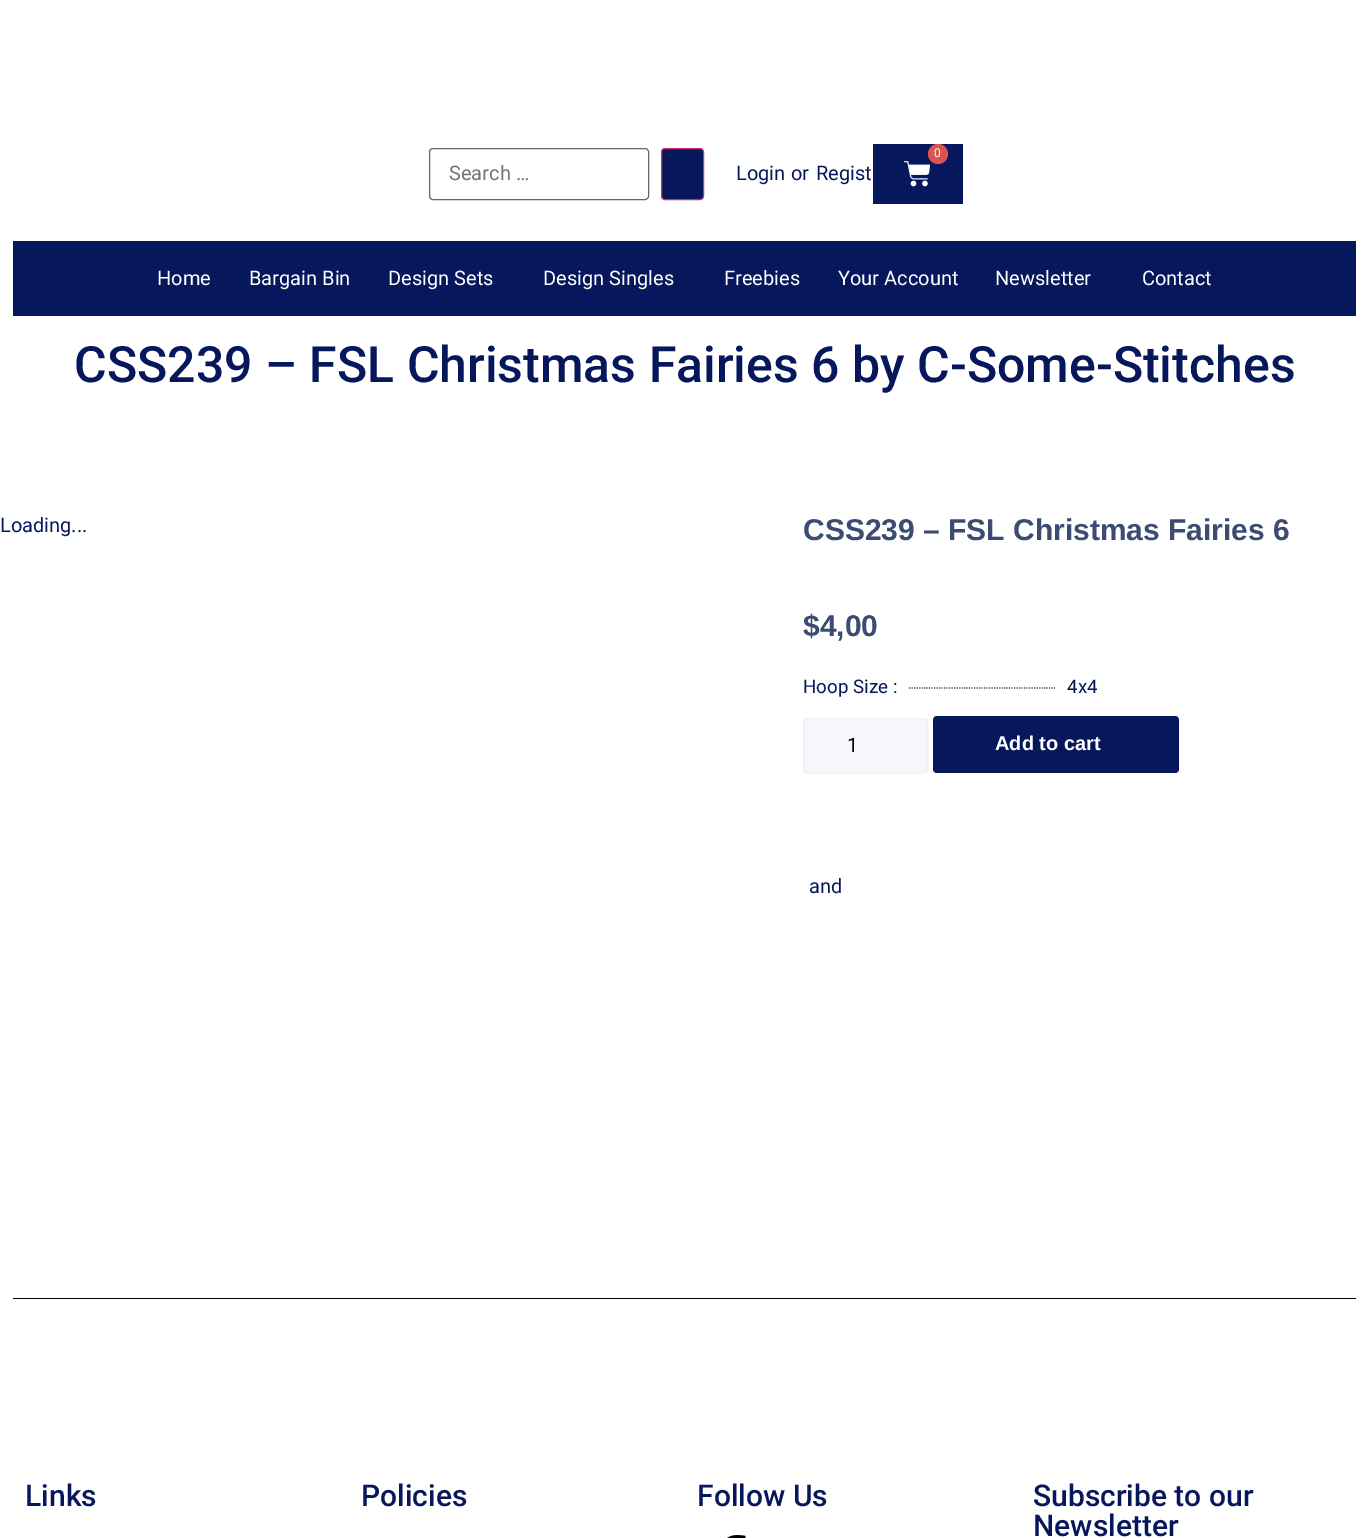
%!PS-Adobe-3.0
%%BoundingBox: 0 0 1368 1538
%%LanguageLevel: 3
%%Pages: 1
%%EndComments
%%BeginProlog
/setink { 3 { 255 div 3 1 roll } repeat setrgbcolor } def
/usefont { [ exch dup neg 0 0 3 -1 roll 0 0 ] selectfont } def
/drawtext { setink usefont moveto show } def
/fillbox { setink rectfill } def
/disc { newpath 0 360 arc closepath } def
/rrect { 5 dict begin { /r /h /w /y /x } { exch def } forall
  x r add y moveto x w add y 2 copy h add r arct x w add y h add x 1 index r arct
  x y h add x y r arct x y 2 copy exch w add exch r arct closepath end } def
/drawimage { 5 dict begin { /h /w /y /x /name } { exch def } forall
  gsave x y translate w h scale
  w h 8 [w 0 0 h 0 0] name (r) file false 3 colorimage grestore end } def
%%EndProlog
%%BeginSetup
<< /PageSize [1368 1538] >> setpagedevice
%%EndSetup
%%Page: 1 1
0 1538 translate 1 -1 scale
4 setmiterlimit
0 0 1368 1538 255 255 255 fillbox
873 144 90 60 7 23 92 fillbox
(assets/img1.rgb) 904 161 27 26 drawimage
217 83 79 setink
938 154 10 disc fill
(0) 934 157 /Roboto-Regular 12 255 255 255 drawtext
102 102 102 setink
429.5 148.5 219 51 3.5 rrect stroke
(Search …) 449 180 /Roboto-Regular 20 117 117 117 drawtext
7 23 92 setink
661.5 148.5 42 51 3.5 rrect gsave fill grestore
204 51 102 setink
stroke
(Login) 736 180 /Roboto-Regular 20 7 23 92 drawtext
(or) 791 180 /Roboto-Regular 20 7 23 92 drawtext
(Regist) 816 180 /Roboto-Regular 20 7 23 92 drawtext
13 241 1343 75 7 23 92 fillbox
(Home) 157 285 /Roboto-Regular 20 255 255 255 drawtext
(Bargain Bin) 249 285 /Roboto-Regular 20 255 255 255 drawtext
(Design Sets) 388 285 /Roboto-Regular 20 255 255 255 drawtext
(Design Singles) 543 285 /Roboto-Regular 20 255 255 255 drawtext
(Freebies) 724 285 /Roboto-Regular 20 255 255 255 drawtext
(Your Account) 838 285 /Roboto-Regular 20 255 255 255 drawtext
(Newsletter) 995 285 /Roboto-Regular 20 255 255 255 drawtext
(Contact) 1142 285 /Roboto-Regular 20 255 255 255 drawtext
(CSS239 – FSL Christmas Fairies 6 by C-Some-Stitches) 74 382 /Roboto-Medium 50 7 23 92 drawtext
(Loading...) 0 532 /Roboto-Regular 20 7 23 92 drawtext
(CSS239 – FSL Christmas Fairies 6) 803 540 /LiberationSans-Bold 30 60 75 113 drawtext
($4,00) 803 636 /LiberationSans-Bold 30 60 75 113 drawtext
(Hoop Size :) 803 693 /Roboto-Regular 18.75 7 23 92 drawtext
67 67 69 setink
1.2 setlinewidth
[1.25 1.25] 0 setdash
909 688 moveto 1055 688 lineto stroke
(4x4) 1067 693 /Roboto-Regular 18.75 7 23 92 drawtext
247 247 251 setink
803.5 718.5 124 54 3.5 rrect gsave fill grestore
238 238 245 setink
1 setlinewidth
[] 0 setdash
stroke
(1) 847 752 /Roboto-Regular 20 0 0 0 drawtext
7 23 92 setink
933 716 246 57 4 rrect fill
(Add to cart) 995 750 /LiberationSans-Bold 20 255 255 255 drawtext
(and) 809 893 /Roboto-Regular 20 7 23 92 drawtext
13 1298 1343 1 0 0 0 fillbox
(Links) 25 1506 /Roboto-Medium 30 7 23 92 drawtext
(Policies) 361 1506 /Roboto-Medium 30 7 23 92 drawtext
(Follow Us) 697 1506 /Roboto-Medium 30 7 23 92 drawtext
(assets/img2.rgb) 727 1535 19 3 drawimage
(Subscribe to our) 1033 1506 /Roboto-Medium 30 7 23 92 drawtext
(Newsletter) 1033 1536 /Roboto-Medium 30 7 23 92 drawtext
showpage
%%EOF
